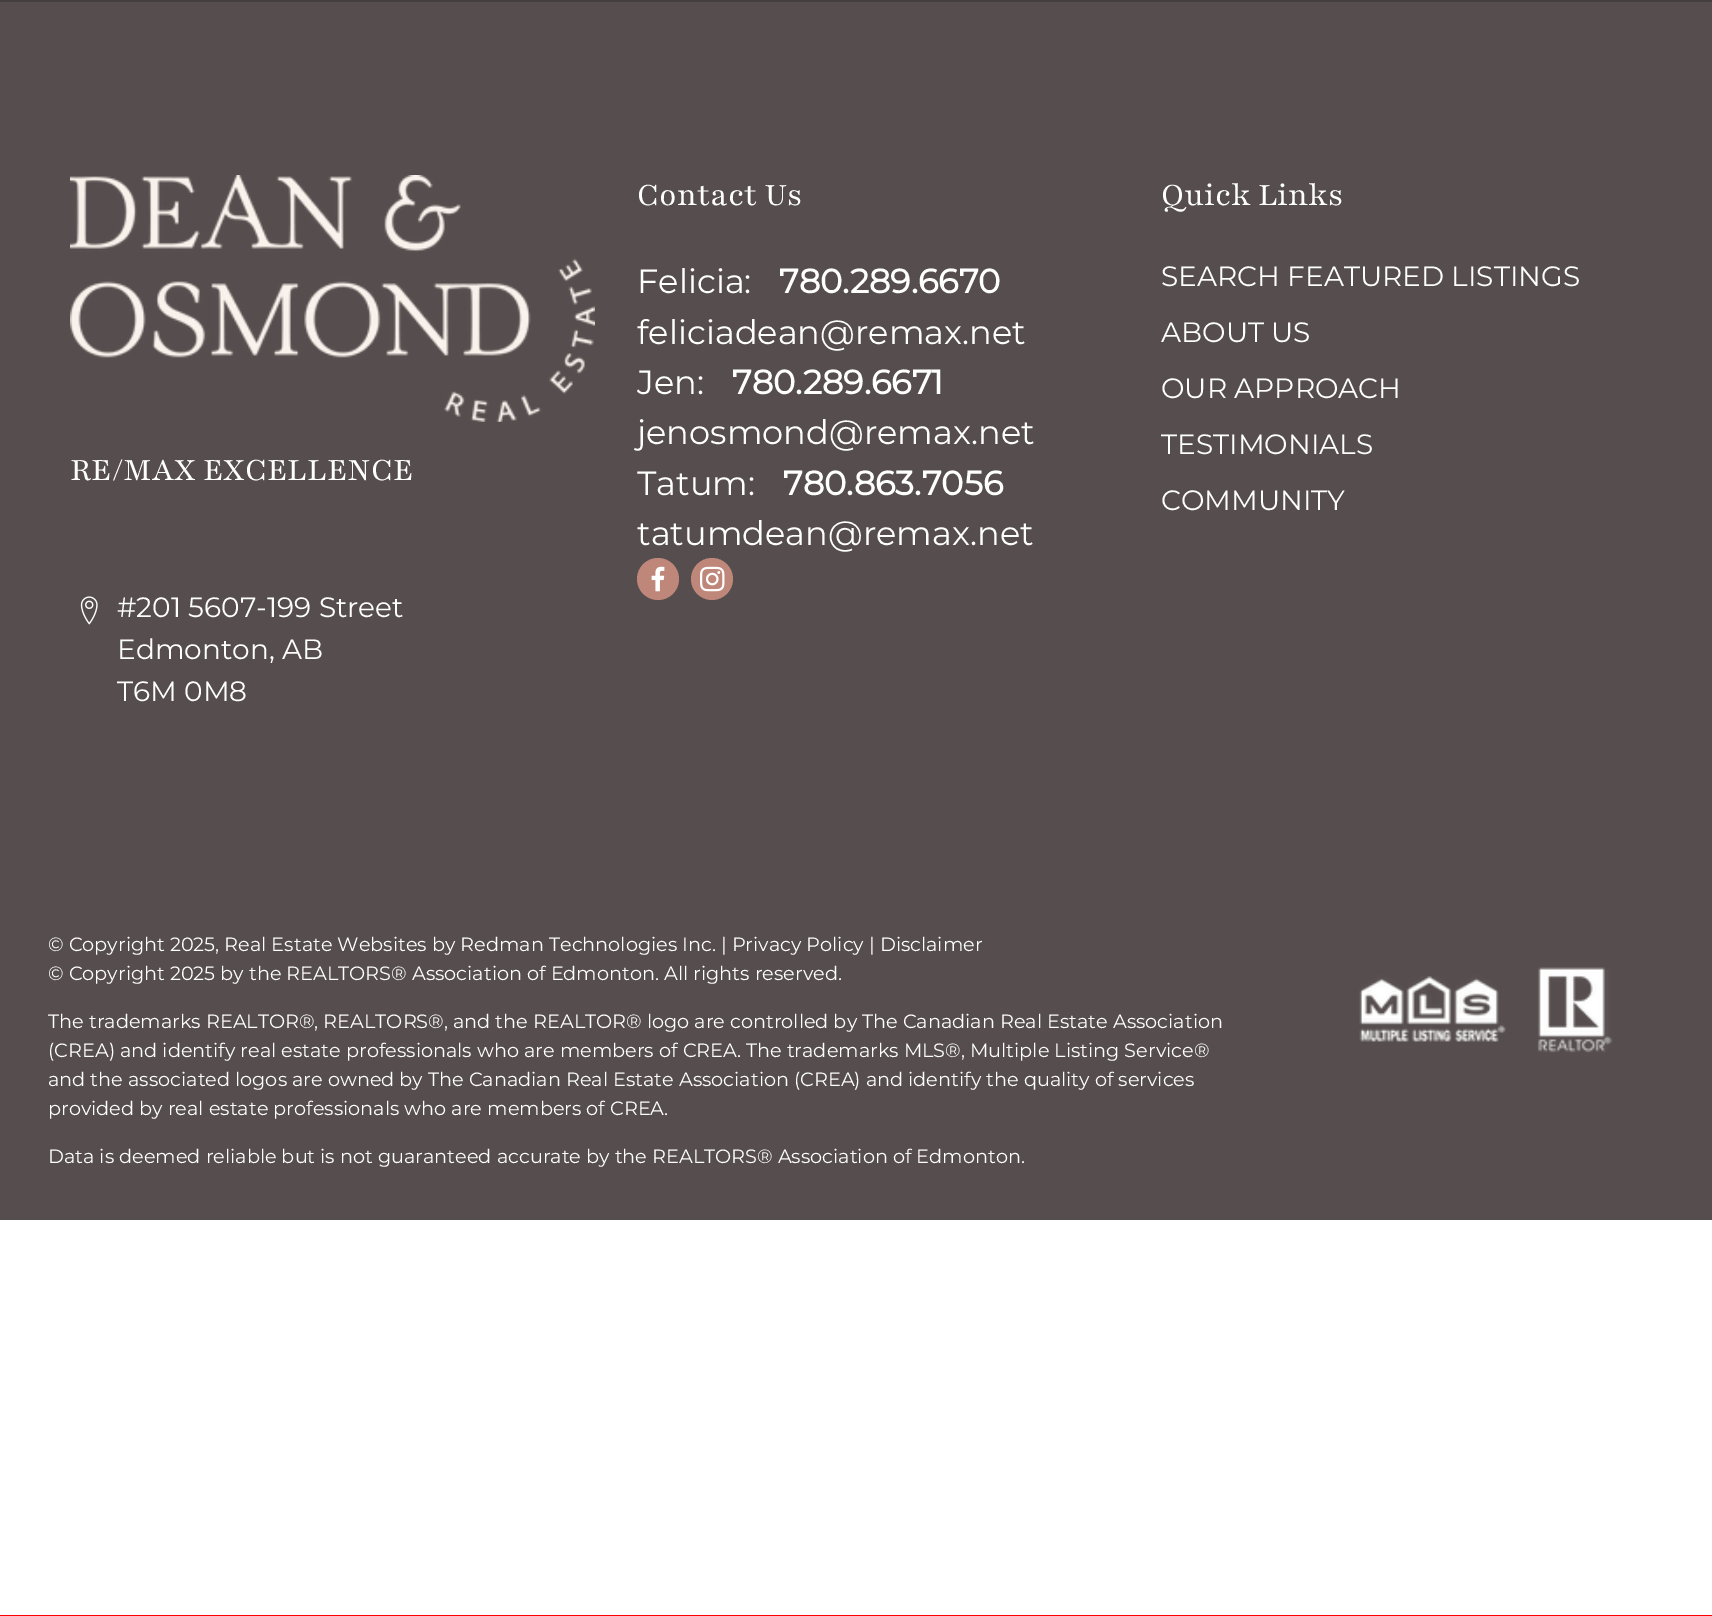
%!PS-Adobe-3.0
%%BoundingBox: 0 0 1712 1616
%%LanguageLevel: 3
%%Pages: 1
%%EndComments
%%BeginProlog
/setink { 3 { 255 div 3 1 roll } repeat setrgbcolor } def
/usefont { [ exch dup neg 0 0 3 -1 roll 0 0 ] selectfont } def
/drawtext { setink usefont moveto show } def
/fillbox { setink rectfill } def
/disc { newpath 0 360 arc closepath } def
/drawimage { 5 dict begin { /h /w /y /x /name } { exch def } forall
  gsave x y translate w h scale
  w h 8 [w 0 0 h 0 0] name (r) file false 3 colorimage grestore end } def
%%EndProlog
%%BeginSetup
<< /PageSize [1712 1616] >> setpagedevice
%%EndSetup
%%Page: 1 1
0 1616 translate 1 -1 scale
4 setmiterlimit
0 0 1712 1616 255 255 255 fillbox
0 0 1712 2 69 62 62 fillbox
0 1615 1712 1 255 0 0 fillbox
0 2 1712 1218 86 78 78 fillbox
(Contact Us) 637 205 /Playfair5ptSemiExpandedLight-Light 35 255 255 255 drawtext
(Felicia:) 637 293 /Montserrat-Thin 33.6 255 255 255 drawtext
(780.289.6670) 779 293 /Montserrat-Bold 33.6 255 255 255 drawtext
(feliciadean@remax.net) 637 344 /Montserrat-Thin 33.6 255 255 255 drawtext
(Jen:) 637 394 /Montserrat-Thin 33.6 255 255 255 drawtext
(780.289.6671) 732 394 /Montserrat-Bold 33.6 255 255 255 drawtext
(jenosmond@remax.net) 637 444 /Montserrat-Thin 33.6 255 255 255 drawtext
(Tatum:) 637 495 /Montserrat-Thin 33.6 255 255 255 drawtext
(780.863.7056) 783 495 /Montserrat-Bold 33.6 255 255 255 drawtext
(tatumdean@remax.net) 637 545 /Montserrat-Thin 33.6 255 255 255 drawtext
190 135 121 setink
658 579 21 disc fill
(assets/img1.rgb) 651 566 14 26 drawimage
712 579 21 disc fill
(assets/img2.rgb) 700 566 25 26 drawimage
(Quick Links) 1161 205 /Playfair5ptSemiExpandedLight-Light 35 255 255 255 drawtext
(SEARCH FEATURED LISTINGS) 1161 286 /Montserrat-Thin 28 255 255 255 drawtext
(ABOUT US) 1161 342 /Montserrat-Thin 28 255 255 255 drawtext
(OUR APPROACH) 1161 398 /Montserrat-Thin 28 255 255 255 drawtext
(TESTIMONIALS) 1161 454 /Montserrat-Thin 28 255 255 255 drawtext
(COMMUNITY) 1161 510 /Montserrat-Thin 28 255 255 255 drawtext
(assets/img3.rgb) 70 175 525 247 drawimage
(RE/MAX EXCELLENCE) 70 480 /Playfair5ptSemiExpandedLight-Light 35 255 255 255 drawtext
(assets/img4.rgb) 80 596 18 29 drawimage
(#201 5607-199 Street) 117 617 /Montserrat-Thin 28 255 255 255 drawtext
(Edmonton, AB) 117 659 /Montserrat-Thin 28 255 255 255 drawtext
(T6M 0M8) 117 701 /Montserrat-Thin 28 255 255 255 drawtext
(© Copyright 2025, Real Estate Websites by Redman Technologies Inc. | Privacy Policy | Disclaimer) 48 951 /Montserrat-Thin 19.25 255 255 255 drawtext
(© Copyright 2025 by the REALTORS® Association of Edmonton. All rights reserved.) 48 980 /Montserrat-Thin 19.25 255 255 255 drawtext
(The trademarks REALTOR®, REALTORS®, and the REALTOR® logo are controlled by The Canadian Real Estate Association) 48 1028 /Montserrat-Thin 19.25 255 255 255 drawtext
(\(CREA\) and identify real estate professionals who are members of CREA. The trademarks MLS®, Multiple Listing Service®) 48 1057 /Montserrat-Thin 19.25 255 255 255 drawtext
(and the associated logos are owned by The Canadian Real Estate Association \(CREA\) and identify the quality of services) 48 1086 /Montserrat-Thin 19.25 255 255 255 drawtext
(provided by real estate professionals who are members of CREA.) 48 1115 /Montserrat-Thin 19.25 255 255 255 drawtext
(Data is deemed reliable but is not guaranteed accurate by the REALTORS® Association of Edmonton.) 48 1163 /Montserrat-Thin 19.25 255 255 255 drawtext
(assets/img5.rgb) 1359 975 147 67 drawimage
(assets/img6.rgb) 1537 967 76 86 drawimage
showpage
%%EOF
